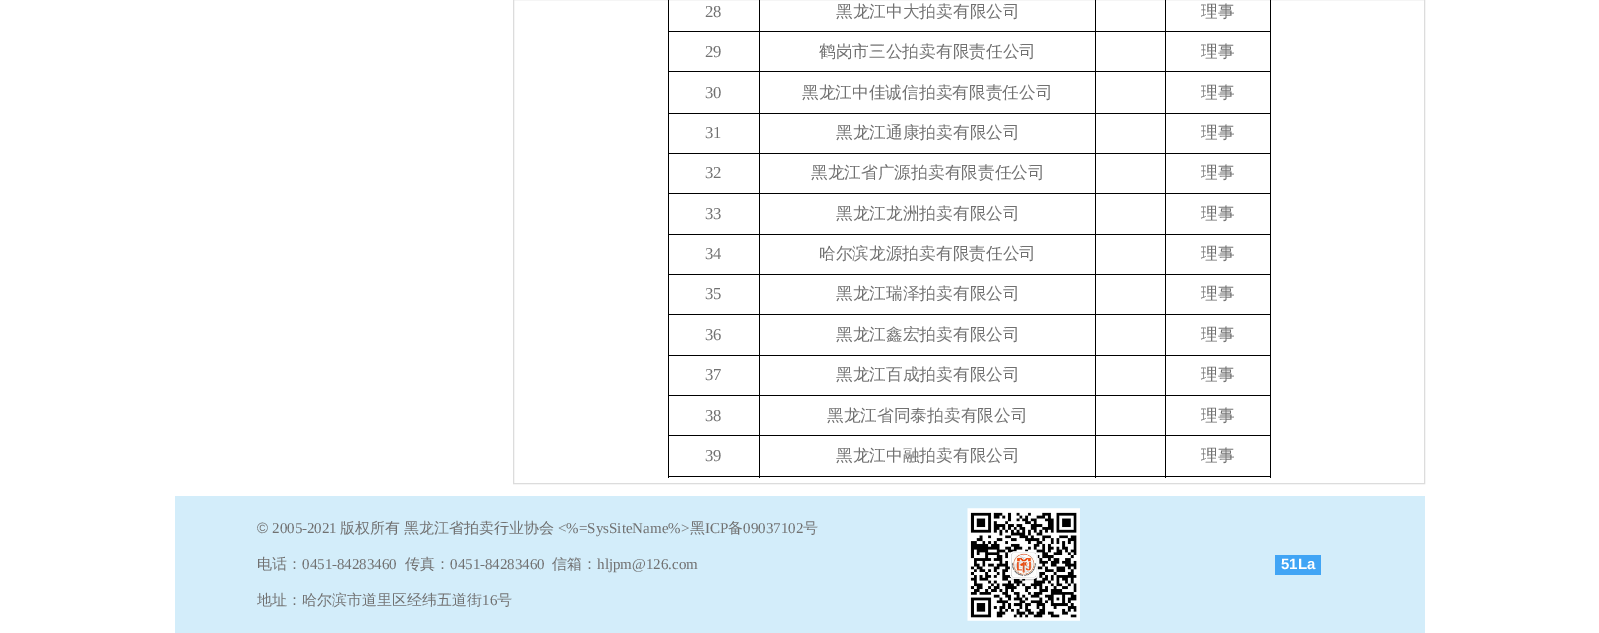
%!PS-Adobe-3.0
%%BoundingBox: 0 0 1599 633
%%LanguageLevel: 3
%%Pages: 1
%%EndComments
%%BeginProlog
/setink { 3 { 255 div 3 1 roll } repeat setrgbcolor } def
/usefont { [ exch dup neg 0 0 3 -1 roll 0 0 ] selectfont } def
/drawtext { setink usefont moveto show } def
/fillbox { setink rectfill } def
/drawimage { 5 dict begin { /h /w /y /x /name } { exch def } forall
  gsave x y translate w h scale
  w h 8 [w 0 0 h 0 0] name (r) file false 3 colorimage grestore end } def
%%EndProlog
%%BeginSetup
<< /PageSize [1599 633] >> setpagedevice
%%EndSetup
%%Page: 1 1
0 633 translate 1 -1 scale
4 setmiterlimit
0 0 1599 633 255 255 255 fillbox
220 220 220 setink
513.5 -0.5 911 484 rectstroke
1270 0 1 478 0 0 0 fillbox
1165 476 106 1 0 0 0 fillbox
1165 435 1 43 0 0 0 fillbox
1165 435 106 1 0 0 0 fillbox
1165 395 1 41 0 0 0 fillbox
1165 395 106 1 0 0 0 fillbox
1165 355 1 41 0 0 0 fillbox
1165 355 106 1 0 0 0 fillbox
1165 314 1 42 0 0 0 fillbox
1165 314 106 1 0 0 0 fillbox
1165 274 1 41 0 0 0 fillbox
1165 274 106 1 0 0 0 fillbox
1165 234 1 41 0 0 0 fillbox
1165 234 106 1 0 0 0 fillbox
1165 193 1 42 0 0 0 fillbox
1165 193 106 1 0 0 0 fillbox
1165 153 1 41 0 0 0 fillbox
1165 153 106 1 0 0 0 fillbox
1165 113 1 41 0 0 0 fillbox
1165 113 106 1 0 0 0 fillbox
1165 71 1 43 0 0 0 fillbox
1165 71 106 1 0 0 0 fillbox
1165 31 1 42 0 0 0 fillbox
1165 31 106 1 0 0 0 fillbox
1165 0 1 33 0 0 0 fillbox
1095 476 71 1 0 0 0 fillbox
1095 435 1 43 0 0 0 fillbox
1095 435 71 1 0 0 0 fillbox
1095 395 1 41 0 0 0 fillbox
1095 395 71 1 0 0 0 fillbox
1095 355 1 41 0 0 0 fillbox
1095 355 71 1 0 0 0 fillbox
1095 314 1 42 0 0 0 fillbox
1095 314 71 1 0 0 0 fillbox
1095 274 1 41 0 0 0 fillbox
1095 274 71 1 0 0 0 fillbox
1095 234 1 41 0 0 0 fillbox
1095 234 71 1 0 0 0 fillbox
1095 193 1 42 0 0 0 fillbox
1095 193 71 1 0 0 0 fillbox
1095 153 1 41 0 0 0 fillbox
1095 153 71 1 0 0 0 fillbox
1095 113 1 41 0 0 0 fillbox
1095 113 71 1 0 0 0 fillbox
1095 71 1 43 0 0 0 fillbox
1095 71 71 1 0 0 0 fillbox
1095 31 1 42 0 0 0 fillbox
1095 31 71 1 0 0 0 fillbox
1095 0 1 33 0 0 0 fillbox
759 476 337 1 0 0 0 fillbox
759 435 1 43 0 0 0 fillbox
759 435 337 1 0 0 0 fillbox
759 395 1 41 0 0 0 fillbox
759 395 337 1 0 0 0 fillbox
759 355 1 41 0 0 0 fillbox
759 355 337 1 0 0 0 fillbox
759 314 1 42 0 0 0 fillbox
759 314 337 1 0 0 0 fillbox
759 274 1 41 0 0 0 fillbox
759 274 337 1 0 0 0 fillbox
759 234 1 41 0 0 0 fillbox
759 234 337 1 0 0 0 fillbox
759 193 1 42 0 0 0 fillbox
759 193 337 1 0 0 0 fillbox
759 153 1 41 0 0 0 fillbox
759 153 337 1 0 0 0 fillbox
759 113 1 41 0 0 0 fillbox
759 113 337 1 0 0 0 fillbox
759 71 1 43 0 0 0 fillbox
759 71 337 1 0 0 0 fillbox
759 31 1 42 0 0 0 fillbox
759 31 337 1 0 0 0 fillbox
759 0 1 33 0 0 0 fillbox
668 476 92 1 0 0 0 fillbox
668 435 1 43 0 0 0 fillbox
668 435 92 1 0 0 0 fillbox
668 395 1 41 0 0 0 fillbox
668 395 92 1 0 0 0 fillbox
668 355 1 41 0 0 0 fillbox
668 355 92 1 0 0 0 fillbox
668 314 1 42 0 0 0 fillbox
668 314 92 1 0 0 0 fillbox
668 274 1 41 0 0 0 fillbox
668 274 92 1 0 0 0 fillbox
668 234 1 41 0 0 0 fillbox
668 234 92 1 0 0 0 fillbox
668 193 1 42 0 0 0 fillbox
668 193 92 1 0 0 0 fillbox
668 153 1 41 0 0 0 fillbox
668 153 92 1 0 0 0 fillbox
668 113 1 41 0 0 0 fillbox
668 113 92 1 0 0 0 fillbox
668 71 1 43 0 0 0 fillbox
668 71 92 1 0 0 0 fillbox
668 31 1 42 0 0 0 fillbox
668 31 92 1 0 0 0 fillbox
668 0 1 33 0 0 0 fillbox
(28) 705 17 /LiberationSerif-Regular 16.7 113 113 113 drawtext
(黑龙江中大拍卖有限公司) 836 17 /WenQuanYiZenHei-Medium 16.7 113 113 113 drawtext
(理事) 1201 17 /WenQuanYiZenHei-Medium 16.7 113 113 113 drawtext
(29) 705 57 /LiberationSerif-Regular 16.7 113 113 113 drawtext
(鹤岗市三公拍卖有限责任公司) 819 57 /WenQuanYiZenHei-Medium 16.7 113 113 113 drawtext
(理事) 1201 57 /WenQuanYiZenHei-Medium 16.7 113 113 113 drawtext
(30) 705 98 /LiberationSerif-Regular 16.7 113 113 113 drawtext
(黑龙江中佳诚信拍卖有限责任公司) 802 98 /WenQuanYiZenHei-Medium 16.7 113 113 113 drawtext
(理事) 1201 98 /WenQuanYiZenHei-Medium 16.7 113 113 113 drawtext
(31) 705 138 /LiberationSerif-Regular 16.7 113 113 113 drawtext
(黑龙江通康拍卖有限公司) 836 138 /WenQuanYiZenHei-Medium 16.7 113 113 113 drawtext
(理事) 1201 138 /WenQuanYiZenHei-Medium 16.7 113 113 113 drawtext
(32) 705 178 /LiberationSerif-Regular 16.7 113 113 113 drawtext
(黑龙江省广源拍卖有限责任公司) 811 178 /WenQuanYiZenHei-Medium 16.7 113 113 113 drawtext
(理事) 1201 178 /WenQuanYiZenHei-Medium 16.7 113 113 113 drawtext
(33) 705 219 /LiberationSerif-Regular 16.7 113 113 113 drawtext
(黑龙江龙洲拍卖有限公司) 836 219 /WenQuanYiZenHei-Medium 16.7 113 113 113 drawtext
(理事) 1201 219 /WenQuanYiZenHei-Medium 16.7 113 113 113 drawtext
(34) 705 259 /LiberationSerif-Regular 16.7 113 113 113 drawtext
(哈尔滨龙源拍卖有限责任公司) 819 259 /WenQuanYiZenHei-Medium 16.7 113 113 113 drawtext
(理事) 1201 259 /WenQuanYiZenHei-Medium 16.7 113 113 113 drawtext
(35) 705 299 /LiberationSerif-Regular 16.7 113 113 113 drawtext
(黑龙江瑞泽拍卖有限公司) 836 299 /WenQuanYiZenHei-Medium 16.7 113 113 113 drawtext
(理事) 1201 299 /WenQuanYiZenHei-Medium 16.7 113 113 113 drawtext
(36) 705 340 /LiberationSerif-Regular 16.7 113 113 113 drawtext
(黑龙江鑫宏拍卖有限公司) 836 340 /WenQuanYiZenHei-Medium 16.7 113 113 113 drawtext
(理事) 1201 340 /WenQuanYiZenHei-Medium 16.7 113 113 113 drawtext
(37) 705 380 /LiberationSerif-Regular 16.7 113 113 113 drawtext
(黑龙江百成拍卖有限公司) 836 380 /WenQuanYiZenHei-Medium 16.7 113 113 113 drawtext
(理事) 1201 380 /WenQuanYiZenHei-Medium 16.7 113 113 113 drawtext
(38) 705 421 /LiberationSerif-Regular 16.7 113 113 113 drawtext
(黑龙江省同泰拍卖有限公司) 827 421 /WenQuanYiZenHei-Medium 16.7 113 113 113 drawtext
(理事) 1201 421 /WenQuanYiZenHei-Medium 16.7 113 113 113 drawtext
(39) 705 461 /LiberationSerif-Regular 16.7 113 113 113 drawtext
(黑龙江中融拍卖有限公司) 836 461 /WenQuanYiZenHei-Medium 16.7 113 113 113 drawtext
(理事) 1201 461 /WenQuanYiZenHei-Medium 16.7 113 113 113 drawtext
175 496 1250 137 211 237 250 fillbox
(©) 257 533 /LiberationSans-Regular 15 113 113 113 drawtext
(2005-2021) 272 533 /LiberationSerif-Regular 15 113 113 113 drawtext
(版权所有 黑龙江省拍卖行业协会) 340 533 /WenQuanYiZenHei-Medium 15 113 113 113 drawtext
(<%=SysSiteName%>) 558 533 /LiberationSerif-Regular 15 113 113 113 drawtext
(黑) 690 533 /WenQuanYiZenHei-Medium 15 113 113 113 drawtext
(ICP) 705 533 /LiberationSerif-Regular 15 113 113 113 drawtext
(备) 728 533 /WenQuanYiZenHei-Medium 15 113 113 113 drawtext
(09037102) 743 533 /LiberationSerif-Regular 15 113 113 113 drawtext
(号) 803 533 /WenQuanYiZenHei-Medium 15 113 113 113 drawtext
(电话：) 257 569 /WenQuanYiZenHei-Medium 15 113 113 113 drawtext
(0451-84283460) 302 569 /LiberationSerif-Regular 15 113 113 113 drawtext
(传真：) 405 569 /WenQuanYiZenHei-Medium 15 113 113 113 drawtext
(0451-84283460) 450 569 /LiberationSerif-Regular 15 113 113 113 drawtext
(信箱：) 552 569 /WenQuanYiZenHei-Medium 15 113 113 113 drawtext
(hljpm@126.com) 597 569 /LiberationSerif-Regular 15 113 113 113 drawtext
(地址：哈尔滨市道里区经纬五道街) 257 605 /WenQuanYiZenHei-Medium 15 113 113 113 drawtext
(16) 482 605 /LiberationSerif-Regular 15 113 113 113 drawtext
(号) 497 605 /WenQuanYiZenHei-Medium 15 113 113 113 drawtext
(assets/img1.rgb) 967 508 113 113 drawimage
1275 555 46 20 65 165 245 fillbox
(51La) 1281 569 /LiberationSans-Bold 15 255 255 255 drawtext
showpage
%%EOF
